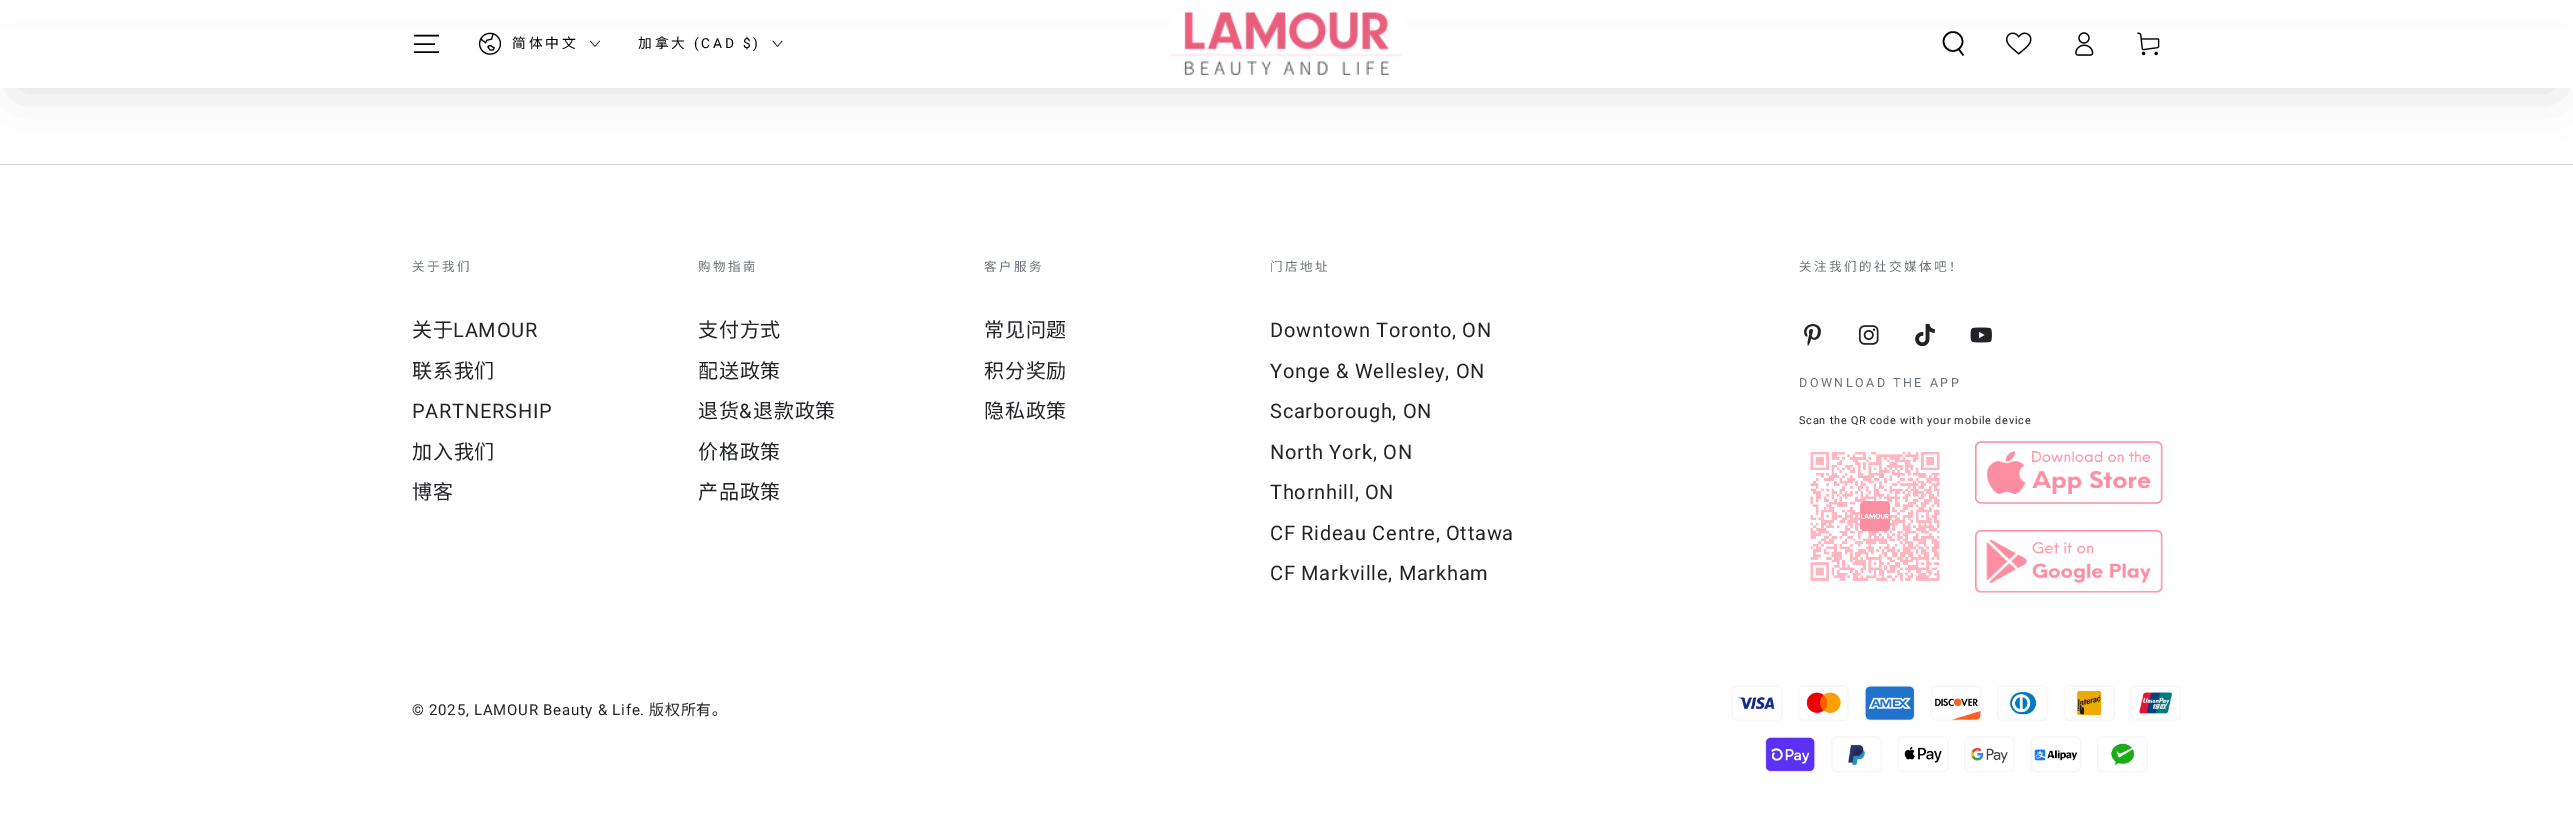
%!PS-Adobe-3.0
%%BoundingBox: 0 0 2573 820
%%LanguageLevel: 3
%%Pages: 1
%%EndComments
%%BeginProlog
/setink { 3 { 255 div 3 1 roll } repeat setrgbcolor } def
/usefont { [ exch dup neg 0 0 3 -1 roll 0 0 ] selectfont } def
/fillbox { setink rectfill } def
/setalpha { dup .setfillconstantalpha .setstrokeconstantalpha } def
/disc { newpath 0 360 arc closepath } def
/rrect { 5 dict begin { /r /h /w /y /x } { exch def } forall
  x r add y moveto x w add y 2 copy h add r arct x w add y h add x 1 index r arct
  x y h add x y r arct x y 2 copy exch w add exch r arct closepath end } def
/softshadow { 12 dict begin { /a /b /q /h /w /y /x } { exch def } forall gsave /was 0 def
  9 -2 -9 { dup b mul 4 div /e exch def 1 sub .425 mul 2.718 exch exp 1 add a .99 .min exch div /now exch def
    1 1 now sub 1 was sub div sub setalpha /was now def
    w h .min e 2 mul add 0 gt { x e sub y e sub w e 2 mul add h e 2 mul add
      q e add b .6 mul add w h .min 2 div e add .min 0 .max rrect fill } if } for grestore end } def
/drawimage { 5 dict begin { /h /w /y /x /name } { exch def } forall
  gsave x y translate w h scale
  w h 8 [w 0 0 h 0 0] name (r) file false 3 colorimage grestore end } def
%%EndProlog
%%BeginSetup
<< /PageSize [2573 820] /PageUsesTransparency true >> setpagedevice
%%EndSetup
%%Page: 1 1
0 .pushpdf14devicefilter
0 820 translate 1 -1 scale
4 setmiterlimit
0 0 2573 820 255 255 255 fillbox
90 68 68 setink
19 63 2536 25 12.5 25 0.2 softshadow
0 27 2573 61 255 255 255 fillbox
(assets/img1.rgb) 1171 12 232 63 drawimage
0 0 0 setink
1.4 setlinewidth
414 52 moveto 439 52 lineto 414 44 moveto 435 44 lineto 414 35.5 moveto 439 35.5 lineto stroke
(assets/img2.rgb) 478 32 24 23 drawimage
/NotoSansCJKSC-Regular 13.75 usefont
512 48 moveto 2.75 0 (简体中文) ashow
(assets/img3.rgb) 590 40 10 7 drawimage
638 48 moveto 2.75 0 (加拿大) ashow
/Roboto-Regular 13.75 usefont
694 48 moveto 2.75 0 (\(CAD $\)) ashow
(assets/img4.rgb) 772 40 11 7 drawimage
1.6 setlinewidth
1953 41.5 9.5 disc stroke
1 setlinecap
1959 49.5 moveto 1963 55 lineto stroke
(assets/img5.rgb) 2006 32 26 23 drawimage
(assets/img6.rgb) 2075 32 19 24 drawimage
(assets/img7.rgb) 2137 32 23 24 drawimage
0 164 2573 1 210 213 217 fillbox
/NotoSansCJKSC-Regular 12.5 usefont
107 113 119 setink
412 271 moveto 2.5 0 (关于我们) ashow
/NotoSansCJKSC-Regular 20 usefont
33 35 38 setink
412 337 moveto 0.75 0 (关于) ashow
/Roboto-Regular 20 usefont
453 337 moveto 0.75 0 (LAMOUR) ashow
/NotoSansCJKSC-Regular 20 usefont
412 378 moveto 0.75 0 (联系我们) ashow
/Roboto-Regular 20 usefont
412 418 moveto 0.75 0 (PARTNERSHIP) ashow
/NotoSansCJKSC-Regular 20 usefont
412 459 moveto 0.75 0 (加入我们) ashow
412 499 moveto 0.75 0 (博客) ashow
/NotoSansCJKSC-Regular 12.5 usefont
107 113 119 setink
698 271 moveto 2.5 0 (购物指南) ashow
/NotoSansCJKSC-Regular 20 usefont
33 35 38 setink
698 337 moveto 0.75 0 (支付方式) ashow
698 378 moveto 0.75 0 (配送政策) ashow
698 418 moveto 0.75 0 (退货) ashow
/Roboto-Regular 20 usefont
739 418 moveto 0.75 0 (&) ashow
/NotoSansCJKSC-Regular 20 usefont
753 418 moveto 0.75 0 (退款政策) ashow
698 459 moveto 0.75 0 (价格政策) ashow
698 499 moveto 0.75 0 (产品政策) ashow
/NotoSansCJKSC-Regular 12.5 usefont
107 113 119 setink
984 271 moveto 2.5 0 (客户服务) ashow
/NotoSansCJKSC-Regular 20 usefont
33 35 38 setink
984 337 moveto 0.75 0 (常见问题) ashow
984 378 moveto 0.75 0 (积分奖励) ashow
984 418 moveto 0.75 0 (隐私政策) ashow
/NotoSansCJKSC-Regular 12.5 usefont
107 113 119 setink
1270 271 moveto 2.5 0 (门店地址) ashow
/Roboto-Regular 20 usefont
33 35 38 setink
1270 337 moveto 0.75 0 (Downtown Toronto, ON) ashow
1270 378 moveto 0.75 0 (Yonge & Wellesley, ON) ashow
1270 418 moveto 0.75 0 (Scarborough, ON) ashow
1270 459 moveto 0.75 0 (North York, ON) ashow
1270 499 moveto 0.75 0 (Thornhill, ON) ashow
1270 540 moveto 0.75 0 (CF Rideau Centre, Ottawa) ashow
1270 580 moveto 0.75 0 (CF Markville, Markham) ashow
/NotoSansCJKSC-Regular 12.5 usefont
107 113 119 setink
1799 271 moveto 2.5 0 (关注我们的社交媒体吧！) ashow
(assets/img8.rgb) 1804 324 17 22 drawimage
(assets/img9.rgb) 1858 325 21 20 drawimage
(assets/img10.rgb) 1915 324 20 22 drawimage
(assets/img11.rgb) 1970 327 22 16 drawimage
/Roboto-Regular 12.5 usefont
1799 387 moveto 2.5 0 (DOWNLOAD THE APP) ashow
/Roboto-Regular 10.9 usefont
33 35 38 setink
1799 424 moveto 0.75 0 (Scan the QR code with your mobile device) ashow
(assets/img12.rgb) 1810 452 130 129 drawimage
(assets/img13.rgb) 1975 441 188 63 drawimage
(assets/img14.rgb) 1975 530 188 63 drawimage
/Roboto-Regular 15 usefont
412 715 moveto 0.75 0 (© 2025, LAMOUR Beauty & Life.) ashow
/NotoSansCJKSC-Regular 15 usefont
649 715 moveto 0.75 0 (版权所有。) ashow
(assets/img15.rgb) 1731 685 450 88 drawimage
.poppdf14devicefilter showpage
%%EOF
